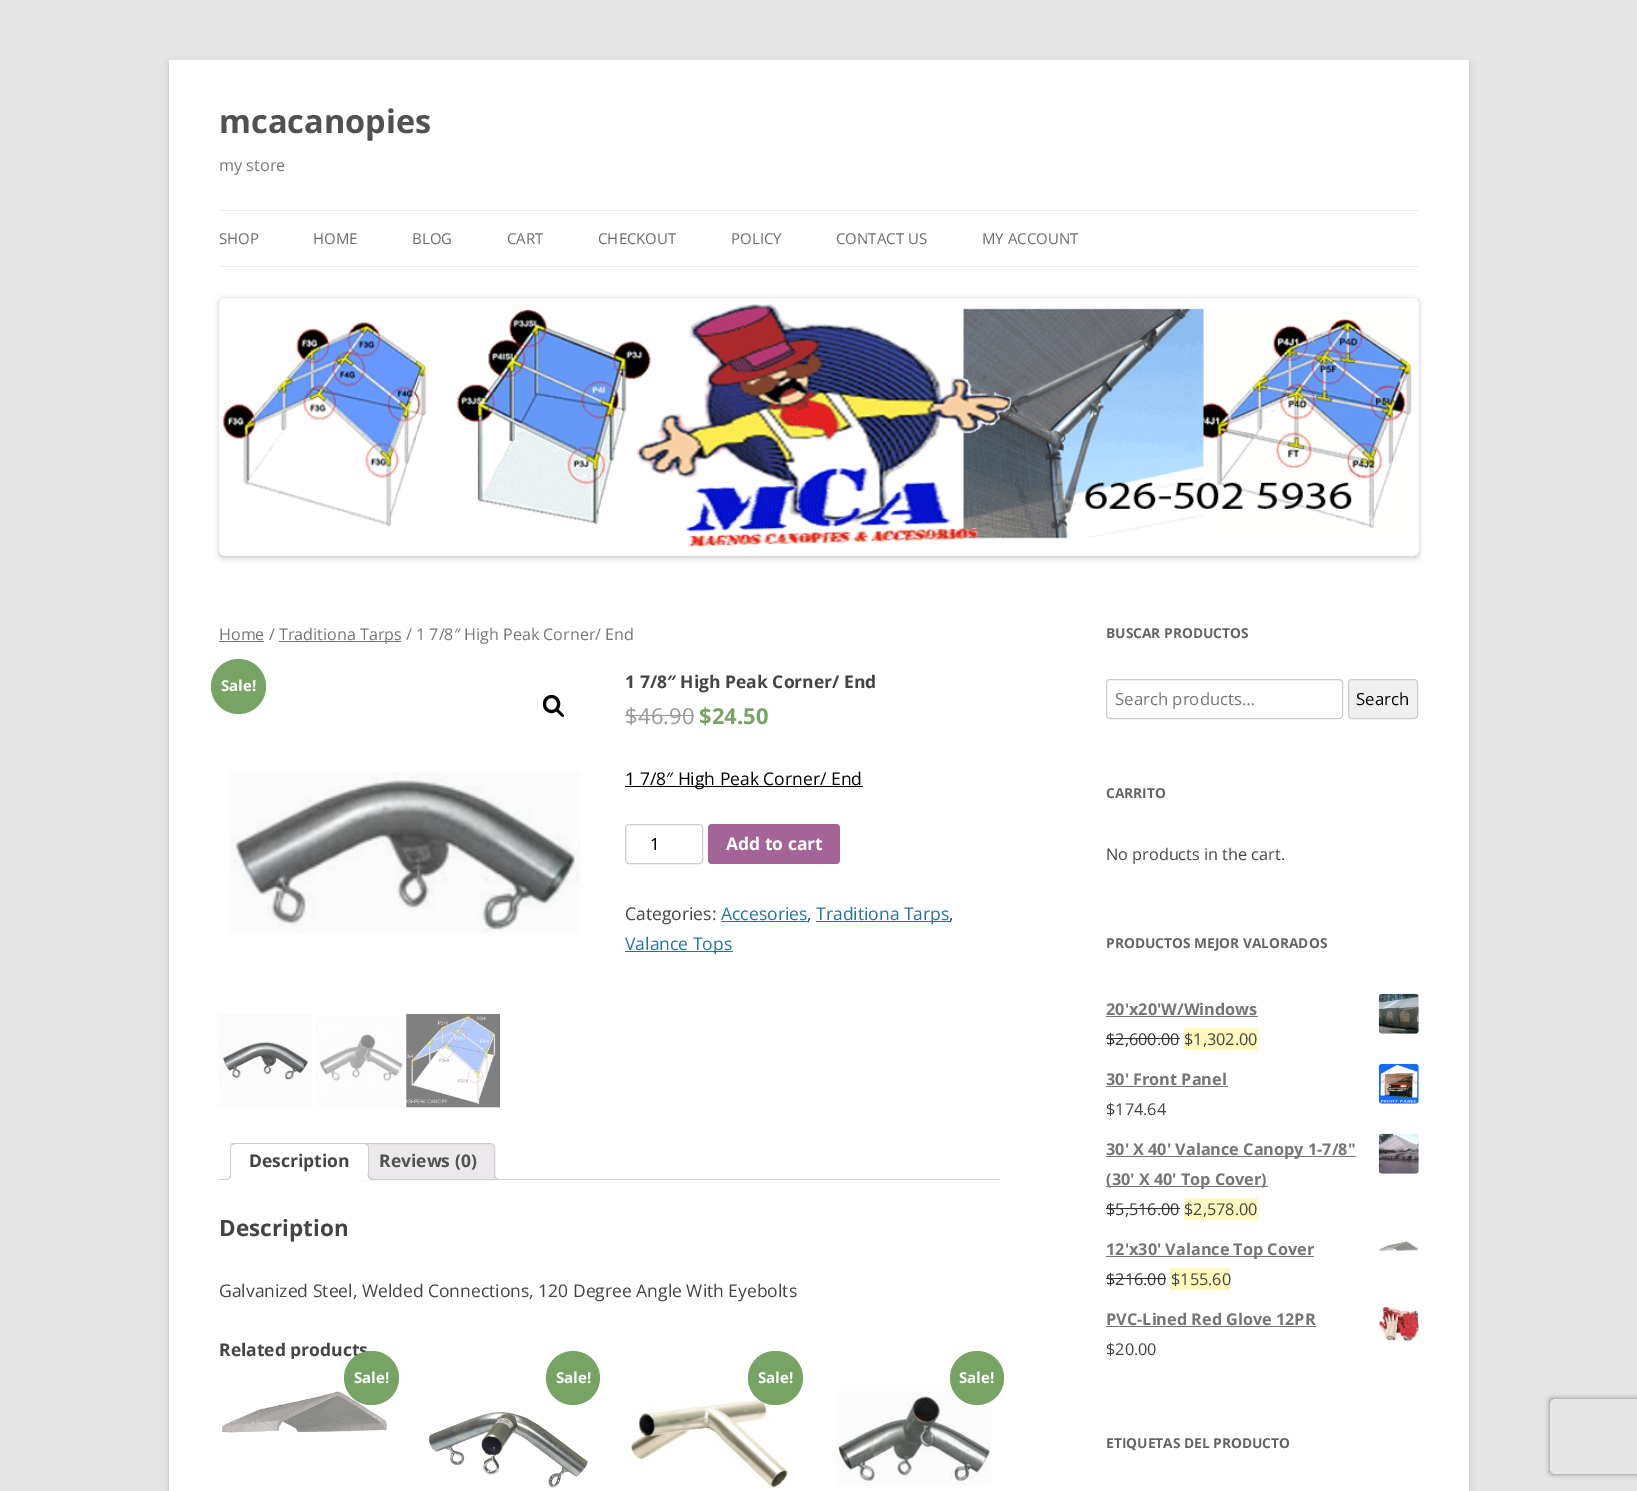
%!PS-Adobe-3.0
%%BoundingBox: 0 0 1637 1491
%%LanguageLevel: 3
%%Pages: 1
%%EndComments
%%BeginProlog
/setink { 3 { 255 div 3 1 roll } repeat setrgbcolor } def
/usefont { [ exch dup neg 0 0 3 -1 roll 0 0 ] selectfont } def
/drawtext { setink usefont moveto show } def
/fillbox { setink rectfill } def
/setalpha { dup .setfillconstantalpha .setstrokeconstantalpha } def
/disc { newpath 0 360 arc closepath } def
/rrect { 5 dict begin { /r /h /w /y /x } { exch def } forall
  x r add y moveto x w add y 2 copy h add r arct x w add y h add x 1 index r arct
  x y h add x y r arct x y 2 copy exch w add exch r arct closepath end } def
/softshadow { 12 dict begin { /a /b /q /h /w /y /x } { exch def } forall gsave /was 0 def
  9 -2 -9 { dup b mul 4 div /e exch def 1 sub .425 mul 2.718 exch exp 1 add a .99 .min exch div /now exch def
    1 1 now sub 1 was sub div sub setalpha /was now def
    w h .min e 2 mul add 0 gt { x e sub y e sub w e 2 mul add h e 2 mul add
      q e add b .6 mul add w h .min 2 div e add .min 0 .max rrect fill } if } for grestore end } def
/drawimage { 5 dict begin { /h /w /y /x /name } { exch def } forall
  gsave x y translate w h scale
  w h 8 [w 0 0 h 0 0] name (r) file false 3 colorimage grestore end } def
%%EndProlog
%%BeginSetup
<< /PageSize [1637 1491] /PageUsesTransparency true >> setpagedevice
%%EndSetup
%%Page: 1 1
0 .pushpdf14devicefilter
0 1491 translate 1 -1 scale
4 setmiterlimit
0 0 1637 1491 230 230 230 fillbox
100 100 100 setink
169 63 1300 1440 0 4 0.3 softshadow
169 60 1300 1431 255 255 255 fillbox
(mcacanopies) 219 133 /OpenSans-Bold 32.5 81 81 81 drawtext
(my store) 219 171 /OpenSans-Regular 16.25 117 117 117 drawtext
219 210 1200 1 237 237 237 fillbox
219 266 1200 1 237 237 237 fillbox
(SHOP) 219 244 /OpenSans-Regular 15 106 106 106 drawtext
(HOME) 313 244 /OpenSans-Regular 15 106 106 106 drawtext
(BLOG) 412 244 /OpenSans-Regular 15 106 106 106 drawtext
(CART) 507 244 /OpenSans-Regular 15 106 106 106 drawtext
(CHECKOUT) 598 244 /OpenSans-Regular 15 106 106 106 drawtext
(POLICY) 731 244 /OpenSans-Regular 15 106 106 106 drawtext
(CONTACT US) 836 244 /OpenSans-Regular 15 106 106 106 drawtext
(MY ACCOUNT) 982 244 /OpenSans-Regular 15 106 106 106 drawtext
gsave
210 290 moveto 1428 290 lineto 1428 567 lineto 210 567 lineto closepath 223 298 moveto 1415 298 lineto 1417 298 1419 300 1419 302 curveto 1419 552 lineto 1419 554 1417 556 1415 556 curveto 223 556 lineto 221 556 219 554 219 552 curveto 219 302 lineto 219 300 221 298 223 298 curveto closepath eoclip newpath
0 0 0 setink
219 299 1200 259 4 2.5 0.2 softshadow
grestore
(assets/img1.rgb) 222 304 1197 244 drawimage
(Home /) 219 640 /OpenSans-Regular 16.1 117 117 117 drawtext
219 641 45 1 118 118 118 fillbox
279 641 122 1 118 118 118 fillbox
(Traditiona Tarps / 1 7/8″ High Peak Corner/ End) 279 640 /OpenSans-Regular 16.1 117 117 117 drawtext
119 164 100 setink
238.5 686.5 27.5 disc fill
(Sale!) 221 691 /OpenSans-Bold 15 255 255 255 drawtext
(1 7/8″ High Peak Corner/ End) 625 688 /OpenSans-Bold 17.5 68 68 68 drawtext
($) 625 724 /OpenSans-Regular 22 153 153 153 drawtext
625 715 13 1 153 153 153 fillbox
(46.90) 638 724 /OpenSans-Regular 22 153 153 153 drawtext
638 715 56 1 153 153 153 fillbox
($24.50) 699 724 /OpenSans-Bold 22 119 164 100 drawtext
625 786 238 1 0 0 0 fillbox
(1 7/8″ High Peak Corner/ End) 625 785 /OpenSans-Regular 17.5 0 0 0 drawtext
204 204 204 setink
625.5 824.5 77 39 3.5 rrect stroke
(1) 650 850 /OpenSans-Regular 16.75 0 0 0 drawtext
164 100 151 setink
708 824 132 40 4 rrect fill
(Add to cart) 726 850 /OpenSans-Bold 17.5 255 255 255 drawtext
(Categories:) 625 920 /OpenSans-Regular 17.5 68 68 68 drawtext
(Accesories) 721 920 /OpenSans-Regular 17.5 33 117 155 drawtext
721 921 87 1 33 117 155 fillbox
(,) 807 920 /OpenSans-Regular 17.5 68 68 68 drawtext
816 921 134 1 33 117 155 fillbox
(Traditiona Tarps) 816 920 /OpenSans-Regular 17.5 33 117 155 drawtext
(,) 949 920 /OpenSans-Regular 17.5 68 68 68 drawtext
625 951 108 1 33 117 155 fillbox
(Valance Tops) 625 950 /OpenSans-Regular 17.5 33 117 155 drawtext
0 0 0 setink
3 setlinewidth
544.5 696.5 14 15 7 rrect stroke
556.5 709.5 moveto 558 708 560 711.5 561 712 curveto 561.5 713 565 715 563.5 716.5 curveto 562 718 560 714.5 559 714 curveto 558.5 713 555 711 556.5 709.5 curveto closepath fill
(assets/img2.rgb) 229 772 352 162 drawimage
(assets/img3.rgb) 219 1014 93 93 drawimage
(assets/img4.rgb) 314 1016 92 91 drawimage
(assets/img5.rgb) 406 1013 94 95 drawimage
235 233 235 setink
365 1143.5 moveto 490 1143.5 lineto 492.5 1143.5 494.5 1145.5 494.5 1148 curveto 494.5 1179.5 lineto 360.5 1179.5 lineto 360.5 1148 lineto 360.5 1145.5 362.5 1143.5 365 1143.5 curveto closepath gsave fill grestore
211 206 210 setink
1 setlinewidth
stroke
gsave
219 1143 781 37 rectclip
235 233 235 setink
491 1176 moveto 491 1181.5 492.5 1183 498 1183 curveto 498 1180 lineto 496 1179.5 494.5 1178 494 1176 curveto closepath fill
grestore
494 1174 moveto 500 1174 lineto 500 1180 lineto 497 1180 494 1178.5 494 1175 curveto closepath 495 1174 moveto 500 1174 lineto 500 1179 lineto 497.5 1179 495 1178 495 1175 curveto closepath eofill
219 1179 781 1 211 206 210 fillbox
255 255 255 setink
235 1143 moveto 364 1143 lineto 367 1143 369 1145 369 1148 curveto 369 1180 lineto 230 1180 lineto 230 1148 lineto 230 1145 232 1143 235 1143 curveto closepath fill
gsave
219 1143 781 37 rectclip
211 206 210 setink
235 1144 moveto 232 1145 lineto 231 1144 lineto 236 1137 247 1142 255 1142 curveto 366 1142 lineto 368 1144 lineto 367 1145 lineto 364 1144 lineto closepath fill
grestore
211 206 210 setink
369 1146 moveto 369 1180 lineto 368 1179 lineto 368 1148 lineto 368 1146.5 367.5 1145.5 366.5 1144.5 curveto 367.5 1143.5 lineto closepath fill
255 255 255 setink
369 1180 moveto 368 1179 lineto 231 1179 lineto 230 1180 lineto closepath fill
211 206 210 setink
230 1180 moveto 231 1179 lineto 231 1148 lineto 231 1146.5 231.5 1145.5 232.5 1145 curveto 231.5 1144 lineto 230.5 1145 230 1146.5 230 1148 curveto closepath fill
(Description) 249 1167 /OpenSans-Bold 17.5 68 68 68 drawtext
gsave
219 1143 781 37 rectclip
255 255 255 setink
228 1179.5 moveto 228 1183 lineto 233 1183 234 1180.5 234 1176 curveto 231 1176 lineto 231 1177.5 229.5 1179 228 1179.5 curveto closepath fill
grestore
211 206 210 setink
225 1174 moveto 231 1174 lineto 231 1178 229.5 1180 225 1180 curveto closepath 225 1174 moveto 230 1174 lineto 230 1177.5 228.5 1179 225 1179 curveto closepath eofill
gsave
219 1143 781 37 rectclip
255 255 255 setink
365 1176 moveto 365 1180.5 366 1183 371 1183 curveto 371 1180 lineto 369.5 1179 368 1178 367.5 1176 curveto closepath fill
grestore
367.5 1174 moveto 374 1174 lineto 374 1180 lineto 370.5 1180 367.5 1178.5 367.5 1175 curveto closepath 369 1174 moveto 374 1174 lineto 374 1179 lineto 371.5 1179 369 1178 369 1175 curveto closepath eofill
(Reviews \(0\)) 379 1167 /OpenSans-Bold 17.5 81 81 81 drawtext
(Description) 219 1236 /OpenSans-Bold 22.5 68 68 68 drawtext
(Galvanized Steel, Welded Connections, 120 Degree Angle With Eyebolts) 219 1297 /OpenSans-Regular 17.5 68 68 68 drawtext
(Related products) 219 1356 /OpenSans-Bold 17.5 68 68 68 drawtext
(assets/img6.rgb) 222 1358 165 75 drawimage
119 164 100 setink
344 1351 55 54 27 rrect fill
(Sale!) 354 1383 /OpenSans-Bold 15 255 255 255 drawtext
119 164 100 setink
573 1378 27 disc fill
(Sale!) 556 1383 /OpenSans-Bold 15 255 255 255 drawtext
(assets/img7.rgb) 428 1412 160 76 drawimage
(assets/img8.rgb) 630 1400 159 89 drawimage
119 164 100 setink
748 1351 55 54 27 rrect fill
(Sale!) 758 1383 /OpenSans-Bold 15 255 255 255 drawtext
(assets/img9.rgb) 835 1391 156 95 drawimage
119 164 100 setink
977 1378 27 disc fill
(Sale!) 959 1383 /OpenSans-Bold 15 255 255 255 drawtext
(BUSCAR PRODUCTOS) 1106 638 /OpenSans-Bold 13.75 99 99 99 drawtext
204 204 204 setink
1106.5 679.5 236 39 3.5 rrect stroke
(Search products…) 1115 705 /OpenSans-Regular 16.75 117 117 117 drawtext
239 239 239 setink
1348.5 679.5 69 39 3.5 rrect gsave fill grestore
204 204 204 setink
stroke
(Search) 1356 705 /OpenSans-Regular 16.75 0 0 0 drawtext
(CARRITO) 1106 798 /OpenSans-Bold 13.75 99 99 99 drawtext
(No products in the cart.) 1106 860 /OpenSans-Regular 16.25 68 68 68 drawtext
(PRODUCTOS MEJOR VALORADOS) 1106 948 /OpenSans-Bold 13.75 99 99 99 drawtext
(20'x20'W/Windows) 1106 1015 /OpenSans-Bold 16.25 117 117 117 drawtext
1106 1016 152 1 117 117 117 fillbox
(assets/img10.rgb) 1378 993 41 41 drawimage
($2,600.00) 1106 1045 /OpenSans-Regular 16.25 51 51 51 drawtext
1106 1038 74 1 51 51 51 fillbox
1184 1028 74 22 255 249 192 fillbox
($1,302.00) 1184 1045 /OpenSans-Regular 16.25 68 68 68 drawtext
(30' Front Panel) 1106 1085 /OpenSans-Bold 16.25 117 117 117 drawtext
1106 1086 122 1 117 117 117 fillbox
(assets/img11.rgb) 1378 1063 41 41 drawimage
($174.64) 1106 1115 /OpenSans-Regular 16.25 68 68 68 drawtext
1106 1156 250 1 117 117 117 fillbox
(30' X 40' Valance Canopy 1-7/8") 1106 1155 /OpenSans-Bold 16.25 117 117 117 drawtext
(assets/img12.rgb) 1378 1133 41 41 drawimage
1106 1186 162 1 117 117 117 fillbox
(\(30' X 40' Top Cover\)) 1106 1185 /OpenSans-Bold 16.25 117 117 117 drawtext
($5,516.00) 1106 1215 /OpenSans-Regular 16.25 51 51 51 drawtext
1106 1208 74 1 51 51 51 fillbox
1184 1198 74 22 255 249 192 fillbox
($2,578.00) 1184 1215 /OpenSans-Regular 16.25 68 68 68 drawtext
1106 1256 208 1 117 117 117 fillbox
(12'x30' Valance Top Cover) 1106 1255 /OpenSans-Bold 16.25 117 117 117 drawtext
(assets/img13.rgb) 1379 1241 39 10 drawimage
($216.00) 1106 1285 /OpenSans-Regular 16.25 51 51 51 drawtext
1106 1278 60 1 51 51 51 fillbox
1170 1268 60 22 255 249 192 fillbox
($155.60) 1171 1285 /OpenSans-Regular 16.25 68 68 68 drawtext
(PVC-Lined Red Glove 12PR) 1106 1325 /OpenSans-Bold 16.25 117 117 117 drawtext
1106 1326 210 1 117 117 117 fillbox
(assets/img14.rgb) 1379 1307 40 34 drawimage
($20.00) 1106 1355 /OpenSans-Regular 16.25 68 68 68 drawtext
(ETIQUETAS DEL PRODUCTO) 1106 1448 /OpenSans-Bold 13.75 99 99 99 drawtext
gsave
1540 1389 moveto 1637 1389 lineto 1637 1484 lineto 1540 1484 lineto closepath 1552.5 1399 moveto 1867.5 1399 lineto 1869 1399 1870 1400 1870 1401.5 curveto 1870 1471.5 lineto 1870 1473 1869 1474 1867.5 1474 curveto 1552.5 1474 lineto 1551 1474 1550 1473 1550 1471.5 curveto 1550 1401.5 lineto 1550 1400 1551 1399 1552.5 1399 curveto closepath eoclip newpath
128 128 128 setink
1550 1399 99 75 2.5 3 1 softshadow
grestore
.poppdf14devicefilter showpage
%%EOF
